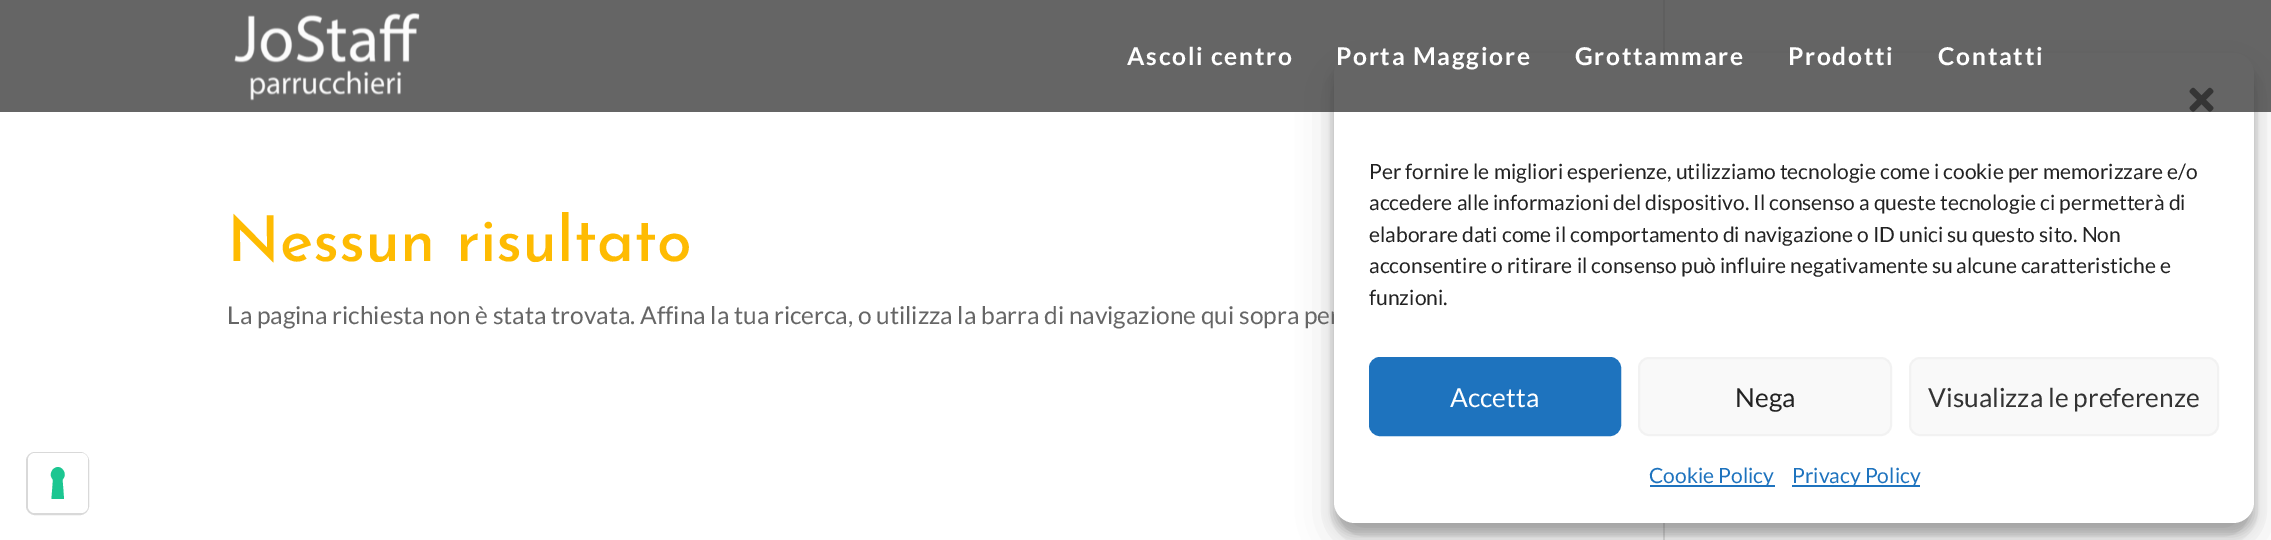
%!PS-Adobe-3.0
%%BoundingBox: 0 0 2271 540
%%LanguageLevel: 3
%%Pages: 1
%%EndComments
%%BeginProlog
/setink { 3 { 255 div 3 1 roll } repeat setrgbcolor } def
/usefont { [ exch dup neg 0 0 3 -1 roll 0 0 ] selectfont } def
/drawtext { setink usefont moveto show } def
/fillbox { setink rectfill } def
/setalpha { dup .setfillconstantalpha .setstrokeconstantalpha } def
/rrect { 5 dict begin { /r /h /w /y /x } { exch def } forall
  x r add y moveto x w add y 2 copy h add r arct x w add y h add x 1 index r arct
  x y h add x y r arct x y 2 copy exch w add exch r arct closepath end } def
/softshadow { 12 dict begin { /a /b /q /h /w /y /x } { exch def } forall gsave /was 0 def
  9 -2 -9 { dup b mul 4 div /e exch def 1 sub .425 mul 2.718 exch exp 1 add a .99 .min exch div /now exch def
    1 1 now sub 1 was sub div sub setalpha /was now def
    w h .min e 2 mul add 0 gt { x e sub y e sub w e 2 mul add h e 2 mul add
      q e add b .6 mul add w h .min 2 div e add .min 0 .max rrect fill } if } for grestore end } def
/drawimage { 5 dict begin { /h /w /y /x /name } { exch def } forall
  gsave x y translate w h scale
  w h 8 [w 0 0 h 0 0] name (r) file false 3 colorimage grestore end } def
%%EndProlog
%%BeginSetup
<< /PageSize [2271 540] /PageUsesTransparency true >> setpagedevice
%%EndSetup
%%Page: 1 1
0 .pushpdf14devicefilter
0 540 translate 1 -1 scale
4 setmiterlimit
0 0 2271 540 255 255 255 fillbox
1663 0 2 540 226 226 226 fillbox
0 0 0 setink
1334 63 920 471 21 5 0.23 softshadow
1334 70 920 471 21 17.5 0.19 softshadow
(La pagina richiesta non è stata trovata. Affina la tua ricerca, o utilizza la barra di navigazione qui sopra per) 227 324 /Lato-Regular 24.5 102 102 102 drawtext
255 255 255 setink
1334 53 920 470 21 rrect fill
(assets/img2.rgb) 2189 87 25 25 drawimage
0.78 setalpha
0 0 2271 112 58 58 58 fillbox
1 setalpha
(assets/img1.rgb) 234 13 186 88 drawimage
/Lato-Bold 24.5 usefont
255 255 255 setink
1127 65 moveto 1.75 0 (Ascoli centro) ashow
1336 65 moveto 1.75 0 (Porta Maggiore) ashow
1575 65 moveto 1.75 0 (Grottammare) ashow
1788 65 moveto 1.75 0 (Prodotti) ashow
1938 65 moveto 1.75 0 (Contatti) ashow
(Nessun risultato) 227 261 /JosefinSans-Medium 63 254 187 2 drawtext
217 217 217 setink
2 setlinewidth
27 453 61 61 8 rrect stroke
255 255 255 setink
28 453 60 60 7 rrect fill
28 198 145 setink
58 467 moveto 64 467.5 67 475.5 62.5 479.5 curveto 64 499 lineto 51.5 499 lineto 53 479.5 lineto 48.5 475.5 51.5 467.5 58 467 curveto closepath eofill
(Per fornire le migliori esperienze, utilizziamo tecnologie come i cookie per memorizzare e/o) 1369 179 /Lato-Regular 21 34 34 34 drawtext
(accedere alle informazioni del dispositivo. Il consenso a queste tecnologie ci permetterà di) 1369 210 /Lato-Regular 21 34 34 34 drawtext
(elaborare dati come il comportamento di navigazione o ID unici su questo sito. Non) 1369 242 /Lato-Regular 21 34 34 34 drawtext
(acconsentire o ritirare il consenso può influire negativamente su alcune caratteristiche e) 1369 273 /Lato-Regular 21 34 34 34 drawtext
(funzioni.) 1369 305 /Lato-Regular 21 34 34 34 drawtext
30 115 190 setink
1370 358 250 77 10 rrect gsave fill grestore
stroke
(Accetta) 1450 407 /Lato-Regular 26.25 255 255 255 drawtext
249 249 249 setink
1639 358 252 77 10 rrect gsave fill grestore
242 242 242 setink
stroke
(Nega) 1735 407 /Lato-Regular 26.25 34 34 34 drawtext
249 249 249 setink
1910 358 308 77 10 rrect gsave fill grestore
242 242 242 setink
stroke
(Visualizza le preferenze) 1928 407 /Lato-Regular 26.25 51 51 51 drawtext
1650 485 125 2 30 115 190 fillbox
(Cookie Policy) 1649 483 /Lato-Regular 21 30 115 190 drawtext
1792 485 128 2 30 115 190 fillbox
(Privacy Policy) 1792 483 /Lato-Regular 21 30 115 190 drawtext
.poppdf14devicefilter showpage
%%EOF
